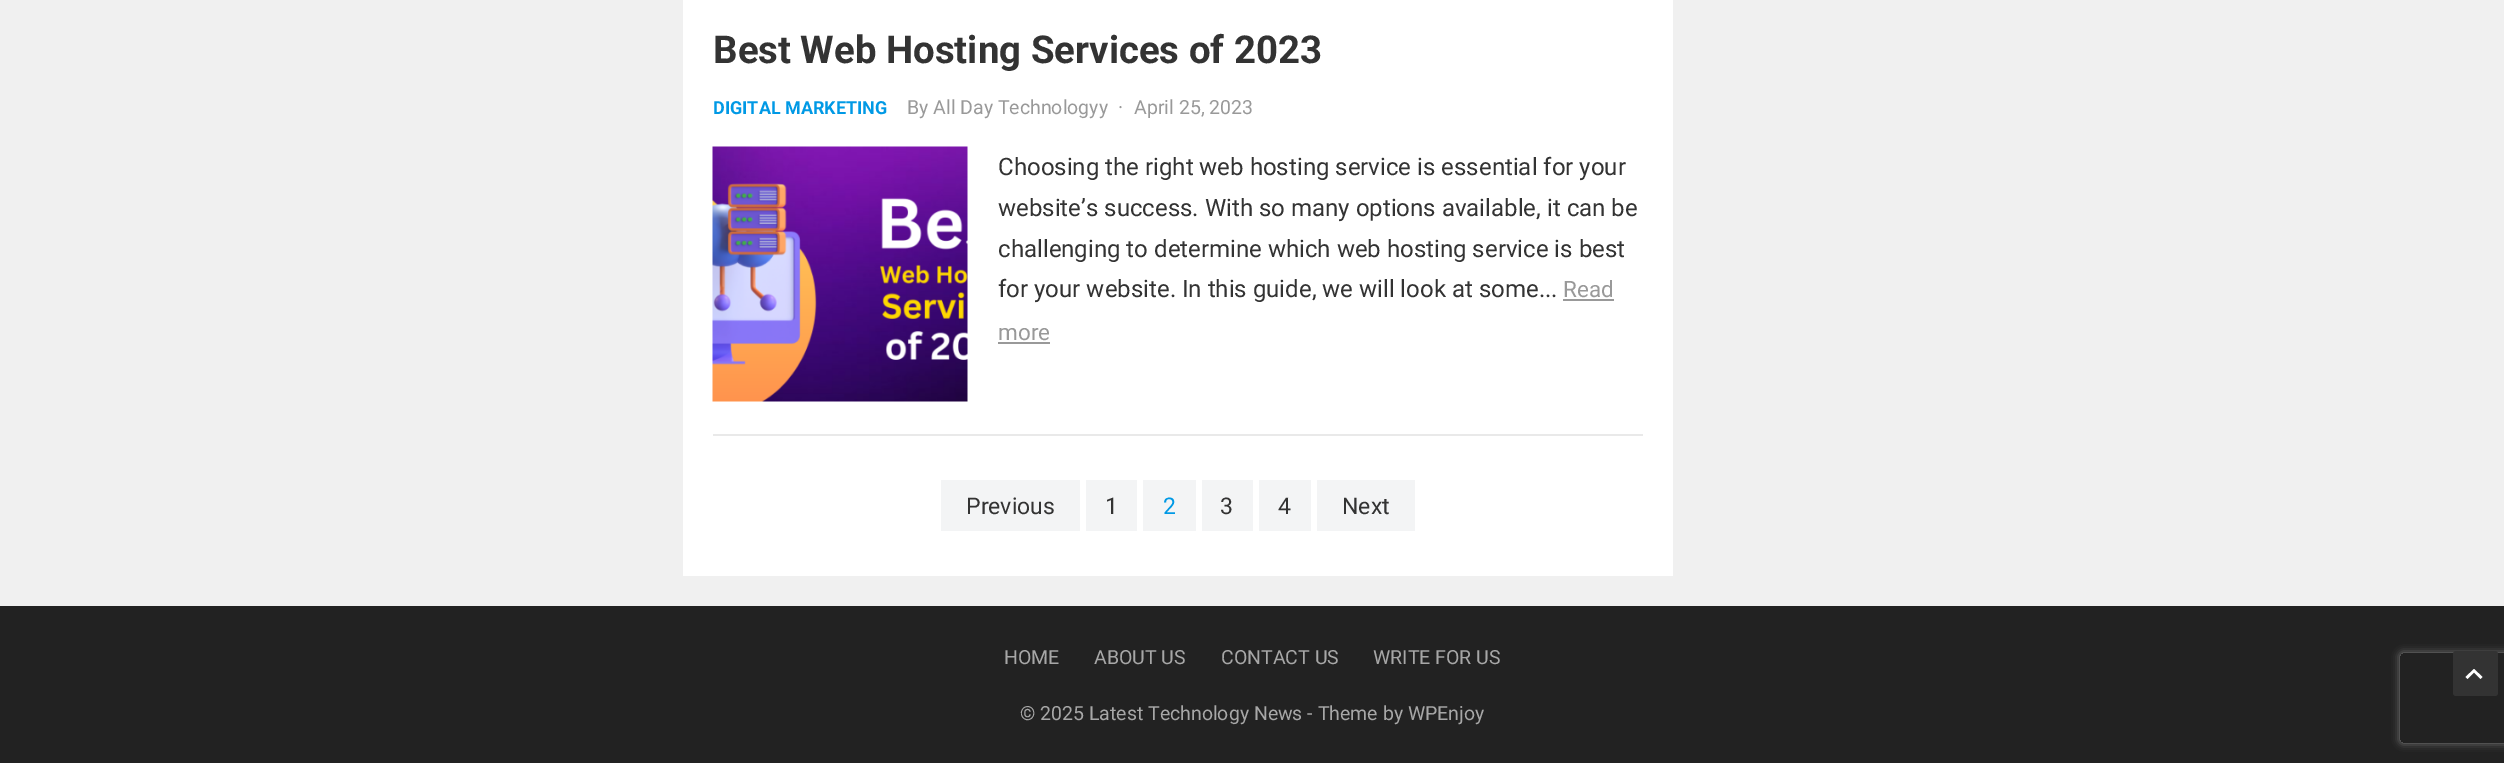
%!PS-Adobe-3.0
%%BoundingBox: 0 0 2504 763
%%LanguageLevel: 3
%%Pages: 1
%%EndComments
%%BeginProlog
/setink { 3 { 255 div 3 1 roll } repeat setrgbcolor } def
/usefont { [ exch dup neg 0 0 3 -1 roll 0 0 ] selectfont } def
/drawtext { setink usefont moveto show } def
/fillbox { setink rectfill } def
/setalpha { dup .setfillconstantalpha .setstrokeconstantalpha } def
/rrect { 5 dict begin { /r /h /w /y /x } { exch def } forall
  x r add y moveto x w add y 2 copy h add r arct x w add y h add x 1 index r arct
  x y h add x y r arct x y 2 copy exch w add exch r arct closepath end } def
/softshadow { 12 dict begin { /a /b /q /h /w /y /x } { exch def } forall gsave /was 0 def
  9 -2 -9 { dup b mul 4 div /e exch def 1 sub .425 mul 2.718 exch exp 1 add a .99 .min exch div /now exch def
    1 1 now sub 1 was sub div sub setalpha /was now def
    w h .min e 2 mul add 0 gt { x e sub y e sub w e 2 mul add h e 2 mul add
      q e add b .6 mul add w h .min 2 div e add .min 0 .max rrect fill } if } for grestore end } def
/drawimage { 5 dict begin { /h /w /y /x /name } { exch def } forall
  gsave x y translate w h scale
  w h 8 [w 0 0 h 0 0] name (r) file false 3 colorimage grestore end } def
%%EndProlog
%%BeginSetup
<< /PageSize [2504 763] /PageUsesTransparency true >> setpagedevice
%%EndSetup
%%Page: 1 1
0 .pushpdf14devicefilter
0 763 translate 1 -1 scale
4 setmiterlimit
0 0 2504 763 240 240 240 fillbox
683 0 990 576 255 255 255 fillbox
(Best Web Hosting Services of 2023) 713 63 /Roboto-Bold 38.4 51 51 51 drawtext
(DIGITAL MARKETING) 713 114 /Roboto-Bold 18 0 153 229 drawtext
(By All Day Technologyy) 907 114 /Roboto-Regular 19.5 153 153 153 drawtext
(·) 1118 114 /Roboto-Regular 19.5 153 153 153 drawtext
(April 25, 2023) 1134 114 /Roboto-Regular 19.5 153 153 153 drawtext
(assets/img1.rgb) 712 146 256 256 drawimage
(Choosing the right web hosting service is essential for your) 998 175 /Roboto-Regular 24 51 51 51 drawtext
(website’s success. With so many options available, it can be) 998 216 /Roboto-Regular 24 51 51 51 drawtext
(challenging to determine which web hosting service is best) 998 257 /Roboto-Regular 24 51 51 51 drawtext
(for your website. In this guide, we will look at some...) 998 297 /Roboto-Regular 24 51 51 51 drawtext
(Read) 1563 297 /Roboto-Regular 22.5 153 153 153 drawtext
1563 299 51 2 153 153 153 fillbox
(more) 998 340 /Roboto-Regular 22.5 153 153 153 drawtext
998 342 52 2 153 153 153 fillbox
713 434 930 2 233 233 233 fillbox
941 480 139 51 243 244 245 fillbox
(Previous) 966 514 /Roboto-Regular 23 51 51 51 drawtext
1086 480 51 51 243 244 245 fillbox
(1) 1105 514 /Roboto-Regular 23 51 51 51 drawtext
1143 480 53 51 243 244 245 fillbox
(2) 1163 514 /Roboto-Regular 23 0 153 229 drawtext
1202 480 51 51 243 244 245 fillbox
(3) 1220 514 /Roboto-Regular 23 51 51 51 drawtext
1259 480 52 51 243 244 245 fillbox
(4) 1278 514 /Roboto-Regular 23 51 51 51 drawtext
1317 480 98 51 243 244 245 fillbox
(Next) 1342 514 /Roboto-Regular 23 51 51 51 drawtext
0 606 2504 157 34 34 34 fillbox
(HOME) 1004 664 /Roboto-Regular 19.5 167 167 167 drawtext
(ABOUT US) 1094 664 /Roboto-Regular 19.5 167 167 167 drawtext
(CONTACT US) 1221 664 /Roboto-Regular 19.5 167 167 167 drawtext
(WRITE FOR US) 1373 664 /Roboto-Regular 19.5 167 167 167 drawtext
(© 2025 Latest Technology News - Theme by WPEnjoy) 1020 720 /Roboto-Regular 19.5 167 167 167 drawtext
gsave
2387 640 moveto 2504 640 lineto 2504 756 lineto 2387 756 lineto closepath 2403 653 moveto 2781 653 lineto 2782.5 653 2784 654.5 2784 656 curveto 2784 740 lineto 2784 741.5 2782.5 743 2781 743 curveto 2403 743 lineto 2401.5 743 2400 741.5 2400 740 curveto 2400 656 lineto 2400 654.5 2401.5 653 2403 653 curveto closepath eoclip newpath
128 128 128 setink
2400 653 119 90 3 4 1 softshadow
grestore
51 51 51 setink
2453 651 45 45 3 rrect fill
255 255 255 setink
2480.5 679 moveto 2474 672.5 lineto 2467.5 679 lineto 2465.5 677 lineto 2474 669 lineto 2482.5 677 lineto closepath fill
.poppdf14devicefilter showpage
%%EOF
